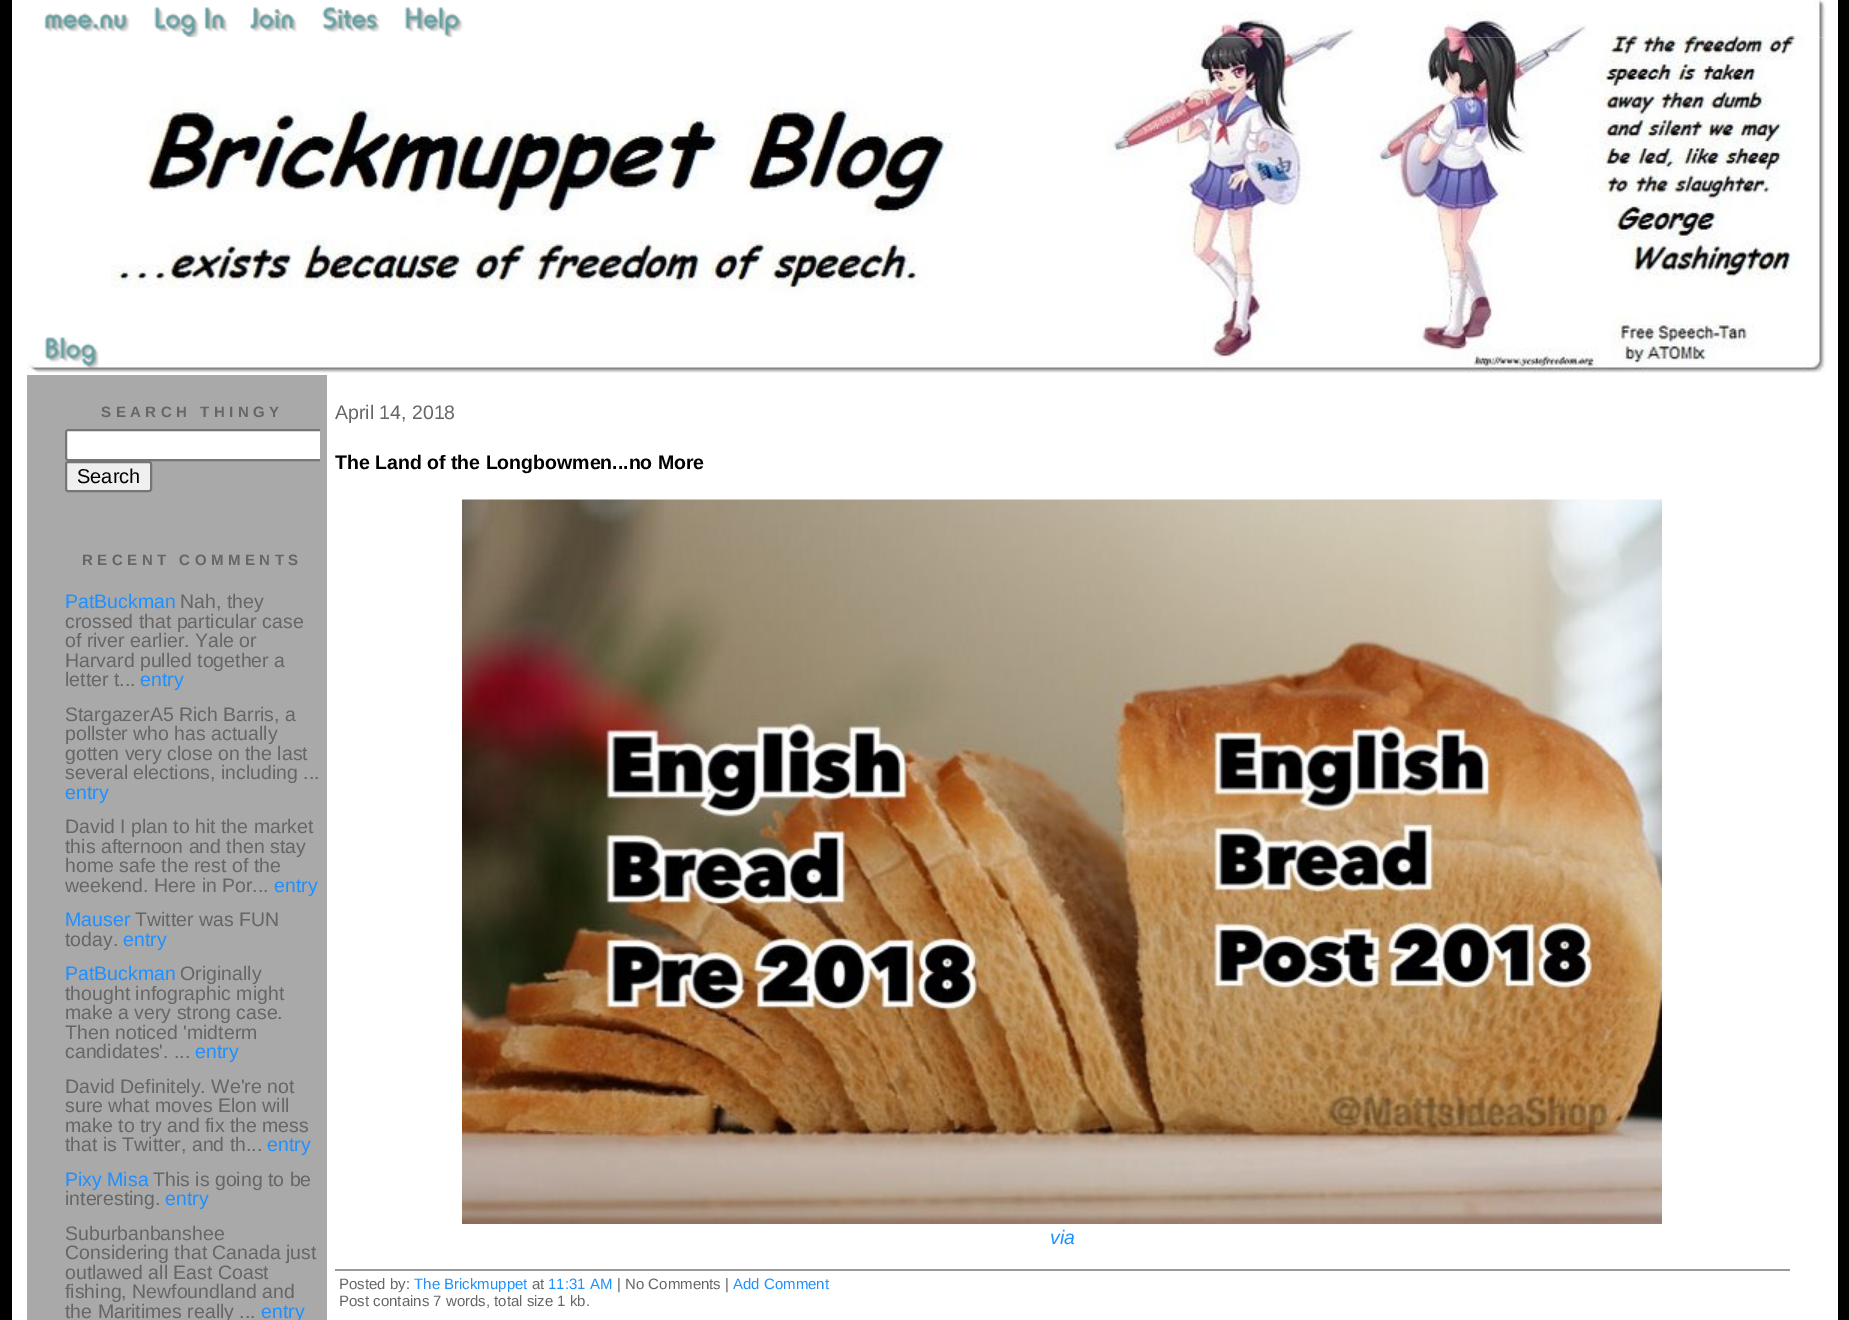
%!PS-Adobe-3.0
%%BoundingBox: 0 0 1849 1320
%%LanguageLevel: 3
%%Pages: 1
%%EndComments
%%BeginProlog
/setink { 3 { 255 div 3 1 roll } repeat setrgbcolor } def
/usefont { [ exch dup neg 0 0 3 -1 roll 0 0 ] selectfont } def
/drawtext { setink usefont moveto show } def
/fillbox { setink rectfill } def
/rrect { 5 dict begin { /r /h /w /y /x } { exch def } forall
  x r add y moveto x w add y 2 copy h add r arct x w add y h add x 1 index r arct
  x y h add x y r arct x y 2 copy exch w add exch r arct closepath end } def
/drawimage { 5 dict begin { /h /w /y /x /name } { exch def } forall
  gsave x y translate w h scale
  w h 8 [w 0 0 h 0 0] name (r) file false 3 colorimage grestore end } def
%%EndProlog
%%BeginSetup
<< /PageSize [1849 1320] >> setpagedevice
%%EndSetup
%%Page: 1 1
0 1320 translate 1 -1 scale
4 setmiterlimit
0 0 1849 1320 0 0 0 fillbox
12 0 1826 1320 255 255 255 fillbox
(assets/img1.rgb) 1204 0 623 38 drawimage
(assets/img2.rgb) 44 13 86 20 drawimage
(assets/img3.rgb) 154 7 74 31 drawimage
(assets/img4.rgb) 250 7 47 26 drawimage
(assets/img5.rgb) 322 6 58 27 drawimage
(assets/img6.rgb) 404 7 59 31 drawimage
(assets/img7.rgb) 110 37 1715 293 drawimage
(assets/img8.rgb) 27 330 1800 43 drawimage
(assets/img9.rgb) 42 337 57 31 drawimage
27 375 300 945 169 169 169 fillbox
/LiberationSans-Bold 15 usefont
102 102 102 setink
101 417 moveto 4.5 0 (SEARCH THINGY) ashow
255 255 255 setink
68 429 moveto 320 429 lineto 320 461 lineto 68 461 lineto 66.5 461 65 459.5 65 458 curveto 65 432 lineto 65 430.5 66.5 429 68 429 curveto closepath fill
(The Land of the Longbowmen...no More) 335 469 /LiberationSans-Bold 19.5 0 0 0 drawtext
gsave
65 398 255 148 rectclip
118 118 118 setink
2 setlinewidth
66 430 275 30 2 rrect stroke
grestore
239 239 239 setink
66 462 85 29 2 rrect gsave fill grestore
118 118 118 setink
2 setlinewidth
stroke
(Search) 77 483 /LiberationSans-Regular 20 0 0 0 drawtext
/LiberationSans-Bold 15 usefont
102 102 102 setink
82 565 moveto 4.5 0 (RECENT COMMENTS) ashow
(PatBuckman) 65 608 /LiberationSans-Regular 19.5 30 144 255 drawtext
(Nah, they) 180 608 /LiberationSans-Regular 19.5 102 102 102 drawtext
(crossed that particular case) 65 628 /LiberationSans-Regular 19.5 102 102 102 drawtext
(of river earlier. Yale or) 65 647 /LiberationSans-Regular 19.5 102 102 102 drawtext
(Harvard pulled together a) 65 667 /LiberationSans-Regular 19.5 102 102 102 drawtext
(letter t...) 65 686 /LiberationSans-Regular 19.5 102 102 102 drawtext
(entry) 140 686 /LiberationSans-Regular 19.5 30 144 255 drawtext
(StargazerA5 Rich Barris, a) 65 721 /LiberationSans-Regular 19.5 102 102 102 drawtext
(pollster who has actually) 65 740 /LiberationSans-Regular 19.5 102 102 102 drawtext
(gotten very close on the last) 65 760 /LiberationSans-Regular 19.5 102 102 102 drawtext
(several elections, including ...) 65 779 /LiberationSans-Regular 19.5 102 102 102 drawtext
(entry) 65 799 /LiberationSans-Regular 19.5 30 144 255 drawtext
(David I plan to hit the market) 65 833 /LiberationSans-Regular 19.5 102 102 102 drawtext
(this afternoon and then stay) 65 853 /LiberationSans-Regular 19.5 102 102 102 drawtext
(home safe the rest of the) 65 872 /LiberationSans-Regular 19.5 102 102 102 drawtext
(weekend. Here in Por...) 65 892 /LiberationSans-Regular 19.5 102 102 102 drawtext
(entry) 274 892 /LiberationSans-Regular 19.5 30 144 255 drawtext
(Mauser) 65 926 /LiberationSans-Regular 19.5 30 144 255 drawtext
(Twitter was FUN) 135 926 /LiberationSans-Regular 19.5 102 102 102 drawtext
(today.) 65 946 /LiberationSans-Regular 19.5 102 102 102 drawtext
(entry) 123 946 /LiberationSans-Regular 19.5 30 144 255 drawtext
(PatBuckman) 65 980 /LiberationSans-Regular 19.5 30 144 255 drawtext
(Originally) 180 980 /LiberationSans-Regular 19.5 102 102 102 drawtext
(thought infographic might) 65 1000 /LiberationSans-Regular 19.5 102 102 102 drawtext
(make a very strong case.) 65 1019 /LiberationSans-Regular 19.5 102 102 102 drawtext
(Then noticed 'midterm) 65 1039 /LiberationSans-Regular 19.5 102 102 102 drawtext
(candidates'. ...) 65 1058 /LiberationSans-Regular 19.5 102 102 102 drawtext
(entry) 195 1058 /LiberationSans-Regular 19.5 30 144 255 drawtext
(David Definitely. We're not) 65 1093 /LiberationSans-Regular 19.5 102 102 102 drawtext
(sure what moves Elon will) 65 1112 /LiberationSans-Regular 19.5 102 102 102 drawtext
(make to try and fix the mess) 65 1132 /LiberationSans-Regular 19.5 102 102 102 drawtext
(that is Twitter, and th...) 65 1151 /LiberationSans-Regular 19.5 102 102 102 drawtext
(entry) 267 1151 /LiberationSans-Regular 19.5 30 144 255 drawtext
(Pixy Misa) 65 1186 /LiberationSans-Regular 19.5 30 144 255 drawtext
(This is going to be) 153 1186 /LiberationSans-Regular 19.5 102 102 102 drawtext
(interesting.) 65 1205 /LiberationSans-Regular 19.5 102 102 102 drawtext
(entry) 165 1205 /LiberationSans-Regular 19.5 30 144 255 drawtext
(Suburbanbanshee) 65 1240 /LiberationSans-Regular 19.5 102 102 102 drawtext
(Considering that Canada just) 65 1259 /LiberationSans-Regular 19.5 102 102 102 drawtext
(outlawed all East Coast) 65 1279 /LiberationSans-Regular 19.5 102 102 102 drawtext
(fishing, Newfoundland and) 65 1298 /LiberationSans-Regular 19.5 102 102 102 drawtext
(the Maritimes really ...) 65 1318 /LiberationSans-Regular 19.5 102 102 102 drawtext
(entry) 261 1318 /LiberationSans-Regular 19.5 30 144 255 drawtext
(April 14, 2018) 335 419 /LiberationSans-Regular 19.5 102 102 102 drawtext
(assets/img10.rgb) 462 499 1200 725 drawimage
(via) 1050 1244 /LiberationSans-Italic 19.5 30 144 255 drawtext
335 1269 1455 2 153 153 153 fillbox
(Posted by:) 339 1289 /LiberationSans-Regular 15 102 102 102 drawtext
(The Brickmuppet) 414 1289 /LiberationSans-Regular 15 30 144 255 drawtext
(at) 532 1289 /LiberationSans-Regular 15 102 102 102 drawtext
(11:31 AM) 548 1289 /LiberationSans-Regular 15 30 144 255 drawtext
(| No Comments |) 617 1289 /LiberationSans-Regular 15 102 102 102 drawtext
(Add Comment) 733 1289 /LiberationSans-Regular 15 30 144 255 drawtext
(Post contains 7 words, total size 1 kb.) 339 1306 /LiberationSans-Regular 15 102 102 102 drawtext
showpage
%%EOF
